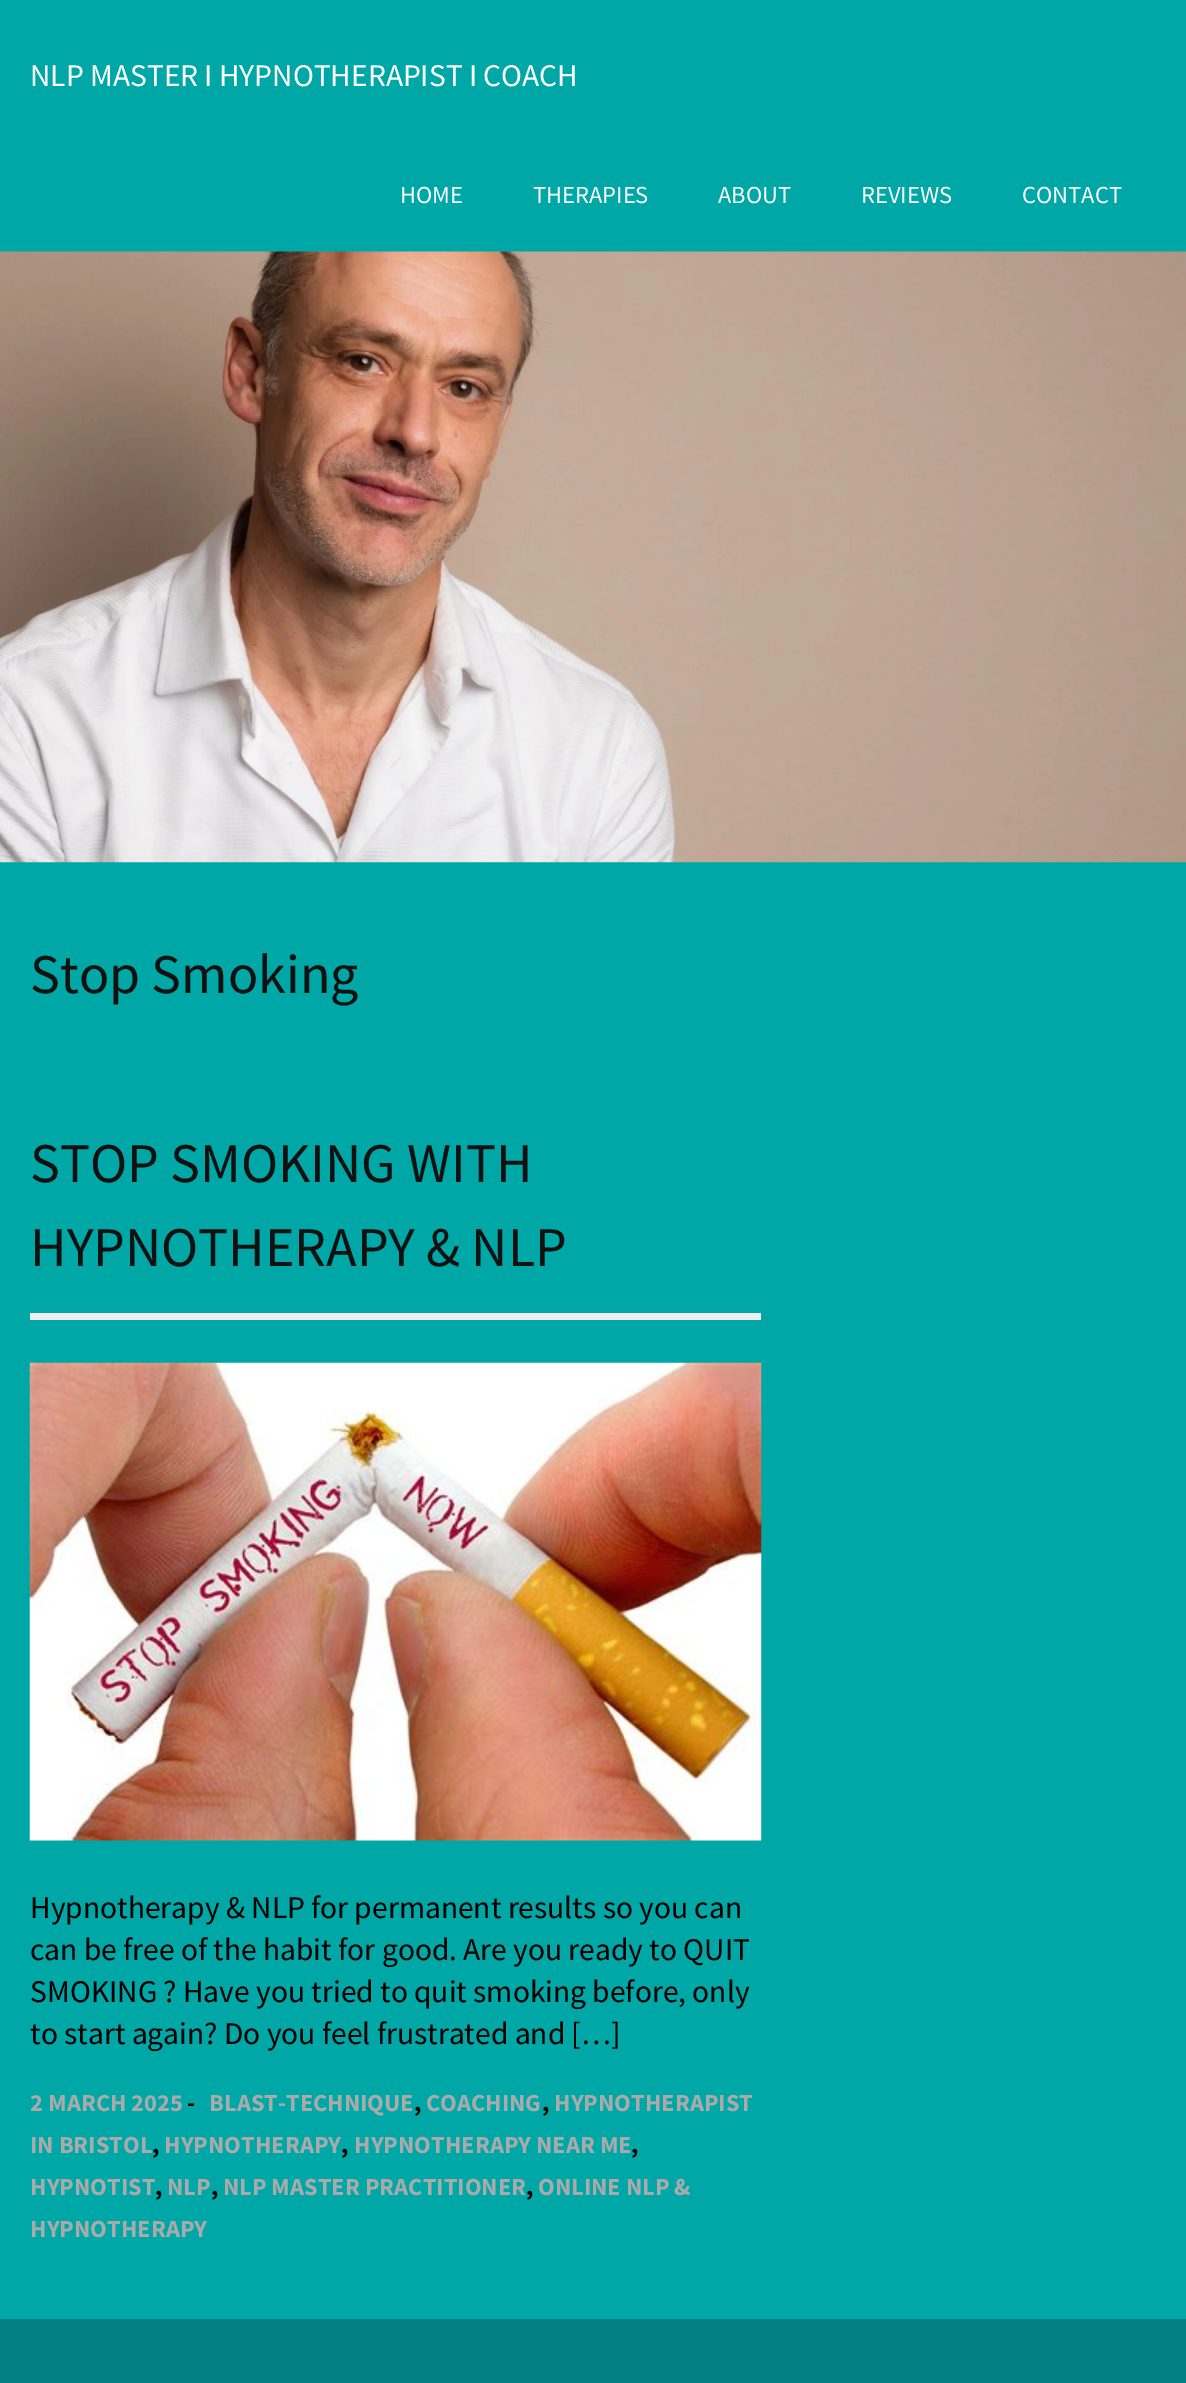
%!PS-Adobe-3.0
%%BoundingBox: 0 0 1186 2383
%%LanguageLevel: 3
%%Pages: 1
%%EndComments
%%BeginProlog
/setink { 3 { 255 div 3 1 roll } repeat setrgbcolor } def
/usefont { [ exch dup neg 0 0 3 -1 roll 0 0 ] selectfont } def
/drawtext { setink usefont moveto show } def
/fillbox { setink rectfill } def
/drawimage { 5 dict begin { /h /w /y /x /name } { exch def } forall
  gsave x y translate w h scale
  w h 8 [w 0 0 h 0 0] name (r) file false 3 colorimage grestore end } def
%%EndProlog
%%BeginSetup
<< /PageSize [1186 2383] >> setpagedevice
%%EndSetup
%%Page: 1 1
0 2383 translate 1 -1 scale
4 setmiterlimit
0 0 1186 2383 0 167 167 fillbox
(NLP MASTER I HYPNOTHERAPIST I COACH) 30 86 /SourceSansPro-Regular 31.5 255 255 255 drawtext
(HOME) 400 203 /SourceSansPro-Regular 24.5 255 255 255 drawtext
(THERAPIES) 533 203 /SourceSansPro-Regular 24.5 255 255 255 drawtext
(ABOUT) 718 203 /SourceSansPro-Regular 24.5 255 255 255 drawtext
(REVIEWS) 861 203 /SourceSansPro-Regular 24.5 255 255 255 drawtext
(CONTACT) 1022 203 /SourceSansPro-Regular 24.5 255 255 255 drawtext
(assets/img1.rgb) 0 251 1186 612 drawimage
(Stop Smoking) 30 993 /SourceSansPro-Regular 56 17 17 17 drawtext
30 1313 731 7 238 238 238 fillbox
(STOP SMOKING WITH) 30 1182 /SourceSansPro-Regular 56 17 17 17 drawtext
(HYPNOTHERAPY & NLP) 30 1266 /SourceSansPro-Regular 56 17 17 17 drawtext
(assets/img2.rgb) 29 1362 733 479 drawimage
(Hypnotherapy & NLP for permanent results so you can) 30 1918 /SourceSansPro-Regular 31.5 0 0 0 drawtext
(can be free of the habit for good. Are you ready to QUIT) 30 1960 /SourceSansPro-Regular 31.5 0 0 0 drawtext
(SMOKING ? Have you tried to quit smoking before, only) 30 2002 /SourceSansPro-Regular 31.5 0 0 0 drawtext
(to start again? Do you feel frustrated and […]) 30 2044 /SourceSansPro-Regular 31.5 0 0 0 drawtext
(2 MARCH 2025) 30 2111 /SourceSansPro-Bold 24.5 170 170 170 drawtext
(-) 187 2111 /SourceSansPro-Bold 24.5 0 0 0 drawtext
(BLAST-TECHNIQUE) 209 2111 /SourceSansPro-Bold 24.5 170 170 170 drawtext
(COACHING) 426 2111 /SourceSansPro-Bold 24.5 170 170 170 drawtext
(HYPNOTHERAPIST) 554 2111 /SourceSansPro-Bold 24.5 170 170 170 drawtext
(,) 414 2111 /SourceSansPro-Bold 24.5 0 0 0 drawtext
(,) 542 2111 /SourceSansPro-Bold 24.5 0 0 0 drawtext
(IN BRISTOL) 30 2153 /SourceSansPro-Bold 24.5 170 170 170 drawtext
(,) 152 2153 /SourceSansPro-Bold 24.5 0 0 0 drawtext
(HYPNOTHERAPY) 164 2153 /SourceSansPro-Bold 24.5 170 170 170 drawtext
(,) 341 2153 /SourceSansPro-Bold 24.5 0 0 0 drawtext
(HYPNOTHERAPY NEAR ME) 354 2153 /SourceSansPro-Bold 24.5 170 170 170 drawtext
(,) 631 2153 /SourceSansPro-Bold 24.5 0 0 0 drawtext
(HYPNOTIST) 30 2195 /SourceSansPro-Bold 24.5 170 170 170 drawtext
(,) 155 2195 /SourceSansPro-Bold 24.5 0 0 0 drawtext
(NLP) 167 2195 /SourceSansPro-Bold 24.5 170 170 170 drawtext
(,) 211 2195 /SourceSansPro-Bold 24.5 0 0 0 drawtext
(NLP MASTER PRACTITIONER) 223 2195 /SourceSansPro-Bold 24.5 170 170 170 drawtext
(,) 526 2195 /SourceSansPro-Bold 24.5 0 0 0 drawtext
(ONLINE NLP &) 538 2195 /SourceSansPro-Bold 24.5 170 170 170 drawtext
(HYPNOTHERAPY) 30 2237 /SourceSansPro-Bold 24.5 170 170 170 drawtext
0 2319 1186 64 0 128 128 fillbox
showpage
%%EOF
